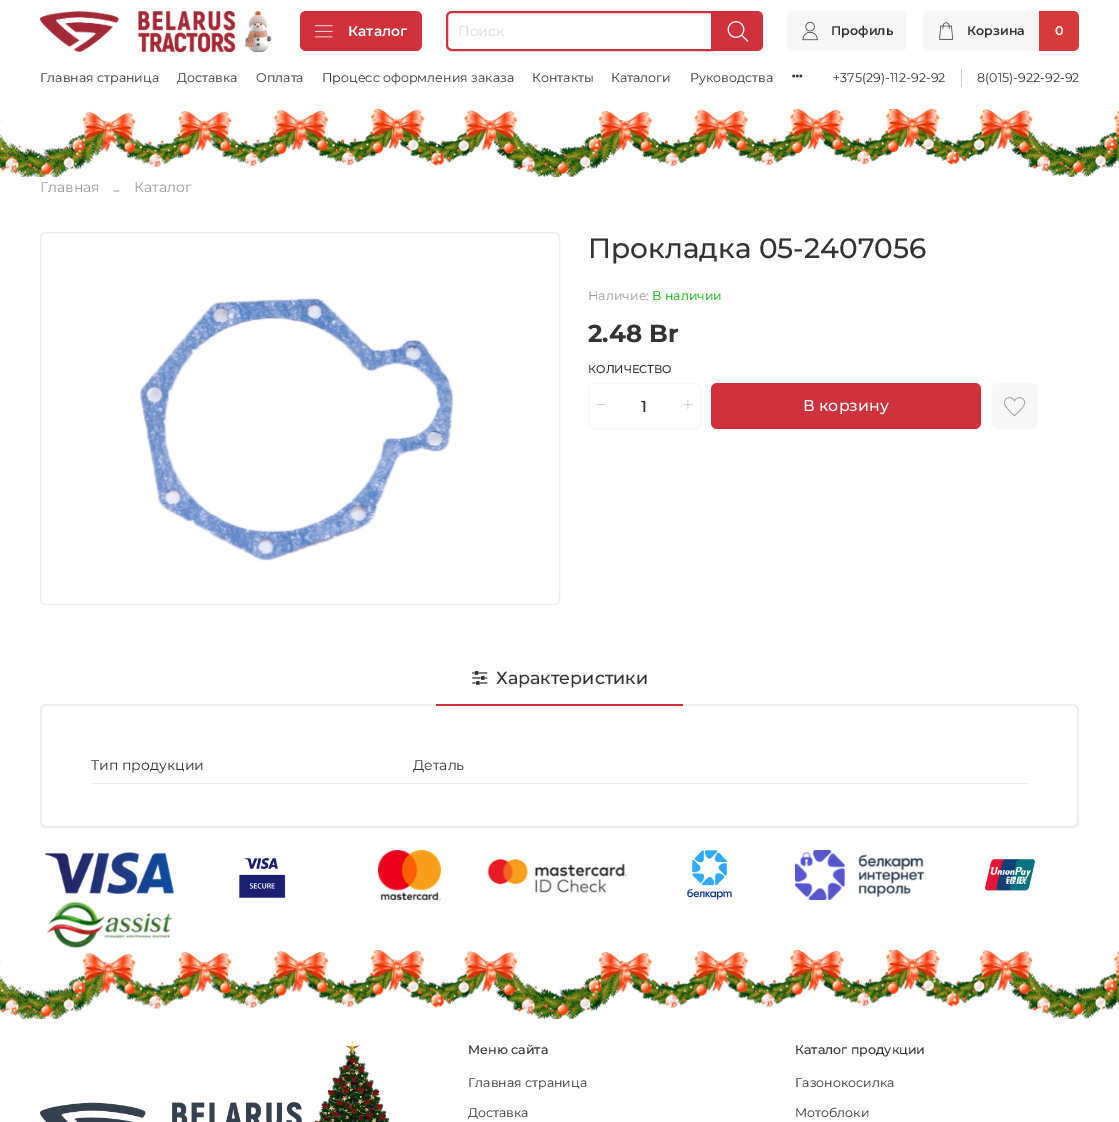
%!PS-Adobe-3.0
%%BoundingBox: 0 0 1119 1122
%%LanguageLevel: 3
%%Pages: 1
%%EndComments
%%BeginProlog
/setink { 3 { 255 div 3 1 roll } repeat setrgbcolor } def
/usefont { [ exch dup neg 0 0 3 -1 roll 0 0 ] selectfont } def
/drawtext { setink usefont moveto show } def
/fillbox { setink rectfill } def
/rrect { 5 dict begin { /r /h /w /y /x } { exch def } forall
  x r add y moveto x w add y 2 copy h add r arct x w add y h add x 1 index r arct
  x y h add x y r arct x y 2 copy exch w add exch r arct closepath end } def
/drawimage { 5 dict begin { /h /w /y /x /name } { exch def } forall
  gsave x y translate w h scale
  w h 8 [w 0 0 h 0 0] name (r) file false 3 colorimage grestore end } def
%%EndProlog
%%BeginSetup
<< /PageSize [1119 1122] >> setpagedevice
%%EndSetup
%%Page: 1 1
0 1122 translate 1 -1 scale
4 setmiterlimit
0 0 1119 1122 255 255 255 fillbox
(assets/img1.rgb) 40 11 232 41 drawimage
208 50 61 setink
300 11 122 40 6 rrect fill
(assets/img2.rgb) 315 25 18 13 drawimage
(Каталог) 348 36 /Montserrat-SemiBold 14 255 255 255 drawtext
208 50 61 setink
2 setlinewidth
452 12 moveto 712 12 lineto 712 50 lineto 452 50 lineto 449 50 447 48 447 45 curveto 447 17 lineto 447 14 449 12 452 12 curveto closepath stroke
(Поиск) 458 36 /Montserrat-Regular 14 221 221 221 drawtext
208 50 61 setink
713 11 moveto 757 11 lineto 760.5 11 763 13.5 763 17 curveto 763 45 lineto 763 48.5 760.5 51 757 51 curveto 713 51 lineto closepath fill
(assets/img3.rgb) 727 21 22 21 drawimage
247 247 247 setink
787 11 120 40 6 rrect fill
(assets/img4.rgb) 802 21 16 20 drawimage
(Профиль) 831 35 /Montserrat-SemiBold 12.6 51 51 51 drawtext
247 247 247 setink
923 11 156 40 6 rrect fill
(assets/img5.rgb) 939 22 14 18 drawimage
(Корзина) 967 35 /Montserrat-SemiBold 12.6 51 51 51 drawtext
214 58 58 setink
1039 11 moveto 1073 11 lineto 1076.5 11 1079 13.5 1079 17 curveto 1079 45 lineto 1079 48.5 1076.5 51 1073 51 curveto 1039 51 lineto closepath fill
(0) 1055 35 /Montserrat-SemiBold 12.6 255 255 255 drawtext
(Главная страница) 40 82 /Montserrat-Regular 12.6 51 51 51 drawtext
(Доставка) 177 82 /Montserrat-Regular 12.6 51 51 51 drawtext
(Оплата) 256 82 /Montserrat-Regular 12.6 51 51 51 drawtext
(Процесс оформления заказа) 322 82 /Montserrat-Regular 12.6 51 51 51 drawtext
(Контакты) 532 82 /Montserrat-Regular 12.6 51 51 51 drawtext
(Каталоги) 611 82 /Montserrat-Regular 12.6 51 51 51 drawtext
(Руководства) 690 82 /Montserrat-Regular 12.6 51 51 51 drawtext
(assets/img6.rgb) 792 74 11 4 drawimage
961 69 1 18 204 204 204 fillbox
(+375\(29\)-112-92-92) 833 82 /Montserrat-Regular 12.6 51 51 51 drawtext
(8\(015\)-922-92-92) 977 82 /Montserrat-Regular 12.6 51 51 51 drawtext
(assets/img7.rgb) 0 109 1119 68 drawimage
(Главная) 40 192 /Montserrat-Regular 14 153 153 153 drawtext
(-) 113 196 /LiberationSerif-Regular 21 184 184 184 drawtext
(Каталог) 134 192 /Montserrat-Regular 14 153 153 153 drawtext
237 237 237 setink
1 setlinewidth
40.5 232.5 519 372 5.5 rrect stroke
(assets/img8.rgb) 140 298 314 263 drawimage
(Прокладка 05-2407056) 588 258 /Montserrat-Medium 28 51 51 51 drawtext
(Наличие:) 588 300 /Montserrat-Regular 12.6 153 153 153 drawtext
(В наличии) 652 300 /Montserrat-Regular 12.6 0 178 0 drawtext
(2.48 Br) 588 342 /Montserrat-Bold 24.5 51 51 51 drawtext
(КОЛИЧЕСТВО) 588 373 /Montserrat-Medium 11.25 51 51 51 drawtext
247 247 247 setink
588.5 383.5 112 45 5.5 rrect stroke
(assets/img9.rgb) 596 404 10 1 drawimage
(1) 641 412 /Montserrat-Medium 15.75 51 51 51 drawtext
(assets/img10.rgb) 683 400 10 10 drawimage
208 50 61 setink
711 383 270 46 6 rrect fill
(В корзину) 803 411 /Montserrat-Medium 15.75 255 255 255 drawtext
247 247 247 setink
992 383 46 46 6 rrect fill
(assets/img11.rgb) 1004 397 21 20 drawimage
237 237 237 setink
2 setlinewidth
41 705 1037 122 5 rrect stroke
436 704 247 2 208 50 61 fillbox
(assets/img12.rgb) 472 671 16 14 drawimage
(Характеристики) 496 684 /Montserrat-Medium 17.5 51 51 51 drawtext
91 783 937 1 237 237 237 fillbox
(Тип продукции) 91 770 /Montserrat-Regular 14 51 51 51 drawtext
(Деталь) 413 770 /Montserrat-Regular 14 51 51 51 drawtext
(assets/img13.rgb) 45 852 129 42 drawimage
(assets/img14.rgb) 239 857 47 41 drawimage
(assets/img15.rgb) 378 850 63 50 drawimage
(assets/img16.rgb) 487 858 140 35 drawimage
(assets/img17.rgb) 687 850 45 50 drawimage
(assets/img18.rgb) 795 850 129 50 drawimage
(assets/img19.rgb) 985 859 50 32 drawimage
(assets/img20.rgb) 46 901 127 47 drawimage
(assets/img21.rgb) 0 950 1119 69 drawimage
(assets/img22.rgb) 40 1041 350 81 drawimage
(Меню сайта) 468 1054 /Montserrat-Medium 12.6 51 51 51 drawtext
(Главная страница) 468 1087 /Montserrat-Regular 12.6 51 51 51 drawtext
(Доставка) 468 1117 /Montserrat-Regular 12.6 51 51 51 drawtext
(Каталог продукции) 795 1054 /Montserrat-Medium 12.6 51 51 51 drawtext
(Газонокосилка) 795 1087 /Montserrat-Regular 12.6 51 51 51 drawtext
(Мотоблоки) 795 1117 /Montserrat-Regular 12.6 51 51 51 drawtext
showpage
%%EOF
